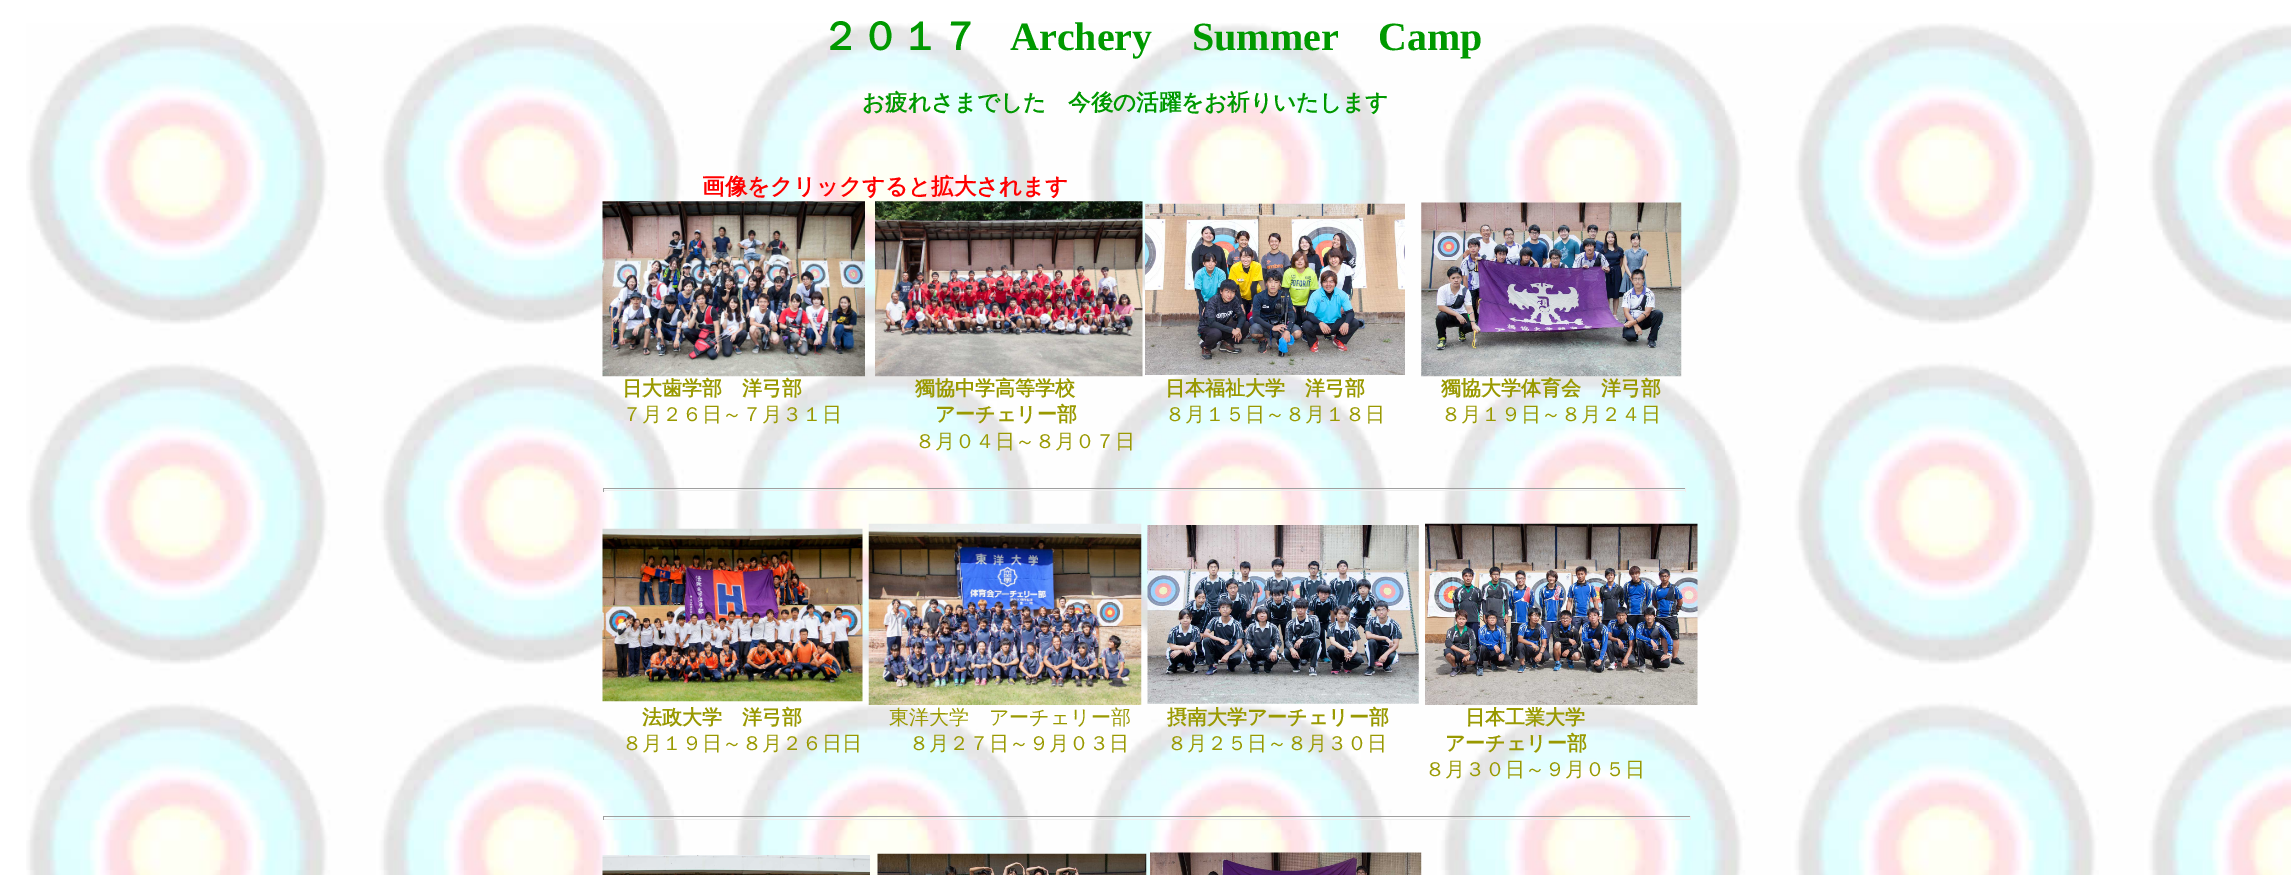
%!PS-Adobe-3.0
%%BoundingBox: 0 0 2291 875
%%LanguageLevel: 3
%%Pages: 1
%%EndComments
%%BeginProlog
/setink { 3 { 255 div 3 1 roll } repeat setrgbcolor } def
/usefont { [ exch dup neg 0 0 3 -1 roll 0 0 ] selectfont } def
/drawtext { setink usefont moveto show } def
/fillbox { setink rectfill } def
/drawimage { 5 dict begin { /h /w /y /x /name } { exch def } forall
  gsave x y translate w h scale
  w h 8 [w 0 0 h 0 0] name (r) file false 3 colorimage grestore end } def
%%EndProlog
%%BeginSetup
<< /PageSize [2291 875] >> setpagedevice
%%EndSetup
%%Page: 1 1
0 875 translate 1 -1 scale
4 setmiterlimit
0 0 2291 875 255 255 255 fillbox
(assets/img1.rgb) 26 23 2265 852 drawimage
(２０１７) 820 50 /WenQuanYiZenHei-Bold 40 0 153 0 drawtext
(Archery) 1010 50 /LiberationSerif-Bold 40 0 153 0 drawtext
(Summer) 1192 50 /LiberationSerif-Bold 40 0 153 0 drawtext
(Camp) 1378 50 /LiberationSerif-Bold 40 0 153 0 drawtext
(お疲れさまでした　今後の活躍をお祈りいたします) 862 110 /WenQuanYiZenHei-Bold 22.5 0 153 0 drawtext
(画像をクリックすると拡大されます) 702 194 /WenQuanYiZenHei-Bold 22.5 255 0 0 drawtext
(assets/img2.rgb) 602 201 263 176 drawimage
(assets/img3.rgb) 875 201 268 176 drawimage
(assets/img4.rgb) 1145 203 260 172 drawimage
(assets/img5.rgb) 1421 202 261 175 drawimage
(日大歯学部　洋弓部) 622 395 /WenQuanYiZenHei-Bold 20 153 153 0 drawtext
(７月２６日～７月３１日) 622 421 /WenQuanYiZenHei-Medium 20 153 153 0 drawtext
(獨協中学高等学校) 915 395 /WenQuanYiZenHei-Bold 20 153 153 0 drawtext
(アーチェリー部) 935 421 /WenQuanYiZenHei-Bold 20 153 153 0 drawtext
(８月０４日～８月０７日) 915 448 /WenQuanYiZenHei-Medium 20 153 153 0 drawtext
(日本福祉大学　洋弓部) 1165 395 /WenQuanYiZenHei-Bold 20 153 153 0 drawtext
(８月１５日～８月１８日) 1165 421 /WenQuanYiZenHei-Medium 20 153 153 0 drawtext
(獨協大学体育会　洋弓部) 1441 395 /WenQuanYiZenHei-Bold 20 153 153 0 drawtext
(８月１９日～８月２４日) 1441 421 /WenQuanYiZenHei-Medium 20 153 153 0 drawtext
603 488 1083 1 159 159 159 fillbox
1685 488 1 4 238 238 238 fillbox
603 490 1083 1 238 238 238 fillbox
603 488 1 4 159 159 159 fillbox
(assets/img6.rgb) 602 528 261 174 drawimage
(assets/img7.rgb) 868 523 274 182 drawimage
(assets/img8.rgb) 1147 525 272 179 drawimage
(assets/img9.rgb) 1425 523 273 182 drawimage
(法政大学　洋弓部) 642 724 /WenQuanYiZenHei-Bold 20 153 153 0 drawtext
(８月１９日～８月２６日日) 622 750 /WenQuanYiZenHei-Medium 20 153 153 0 drawtext
(東洋大学　アーチェリー部) 889 724 /WenQuanYiZenHei-Medium 20 153 153 0 drawtext
(８月２７日～９月０３日) 909 750 /WenQuanYiZenHei-Medium 20 153 153 0 drawtext
(摂南大学アーチェリー部) 1167 724 /WenQuanYiZenHei-Bold 20 153 153 0 drawtext
(８月２５日～８月３０日) 1167 750 /WenQuanYiZenHei-Medium 20 153 153 0 drawtext
(日本工業大学) 1465 724 /WenQuanYiZenHei-Bold 20 153 153 0 drawtext
(アーチェリー部) 1445 750 /WenQuanYiZenHei-Bold 20 153 153 0 drawtext
(８月３０日～９月０５日) 1425 776 /WenQuanYiZenHei-Medium 20 153 153 0 drawtext
603 816 1088 1 159 159 159 fillbox
1690 816 1 4 238 238 238 fillbox
603 819 1088 1 238 238 238 fillbox
603 816 1 4 159 159 159 fillbox
(assets/img10.rgb) 602 855 268 20 drawimage
(assets/img11.rgb) 877 853 270 22 drawimage
(assets/img12.rgb) 1150 852 272 23 drawimage
showpage
%%EOF
